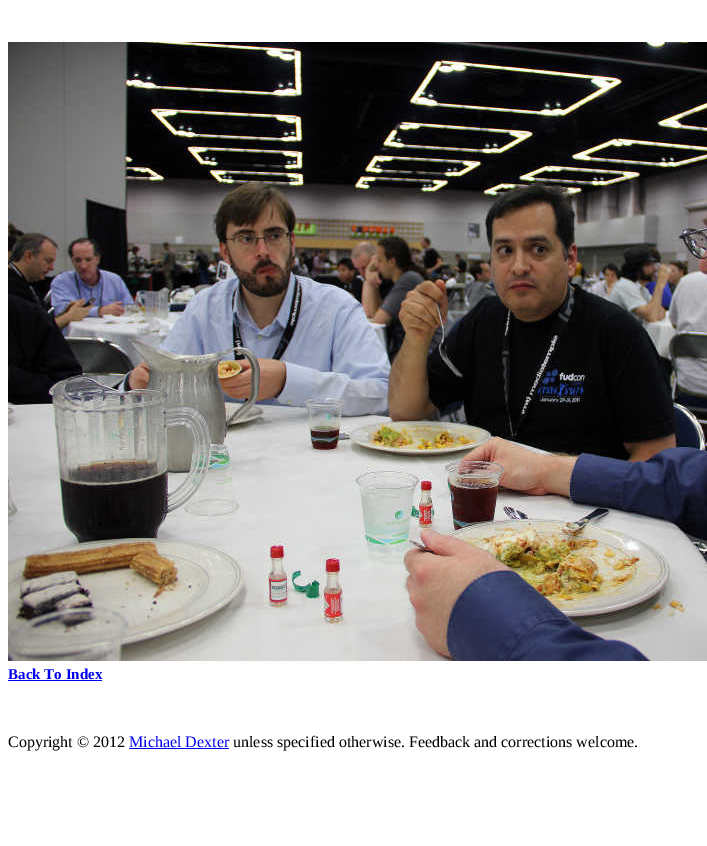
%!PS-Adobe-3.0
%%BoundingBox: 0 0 707 846
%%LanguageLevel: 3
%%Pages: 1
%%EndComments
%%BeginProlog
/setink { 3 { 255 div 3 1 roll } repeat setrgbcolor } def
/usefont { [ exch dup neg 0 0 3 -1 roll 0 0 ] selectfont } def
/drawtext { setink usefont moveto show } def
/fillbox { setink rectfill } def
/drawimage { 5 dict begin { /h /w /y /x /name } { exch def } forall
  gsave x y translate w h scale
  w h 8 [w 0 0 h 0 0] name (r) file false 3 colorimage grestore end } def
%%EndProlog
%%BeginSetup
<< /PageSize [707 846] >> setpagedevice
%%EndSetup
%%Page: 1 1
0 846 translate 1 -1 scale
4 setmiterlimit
0 0 707 846 255 255 255 fillbox
(assets/img1.rgb) 8 42 699 619 drawimage
(Back To Index) 8 679 /LiberationSerif-Bold 15 0 0 238 drawtext
8 680 94 1 0 0 238 fillbox
(Copyright © 2012) 8 747 /LiberationSerif-Regular 16 0 0 0 drawtext
(Michael Dexter) 129 747 /LiberationSerif-Regular 16 0 0 238 drawtext
129 748 100 1 0 0 238 fillbox
(unless specified otherwise. Feedback and corrections welcome.) 233 747 /LiberationSerif-Regular 16 0 0 0 drawtext
showpage
%%EOF
